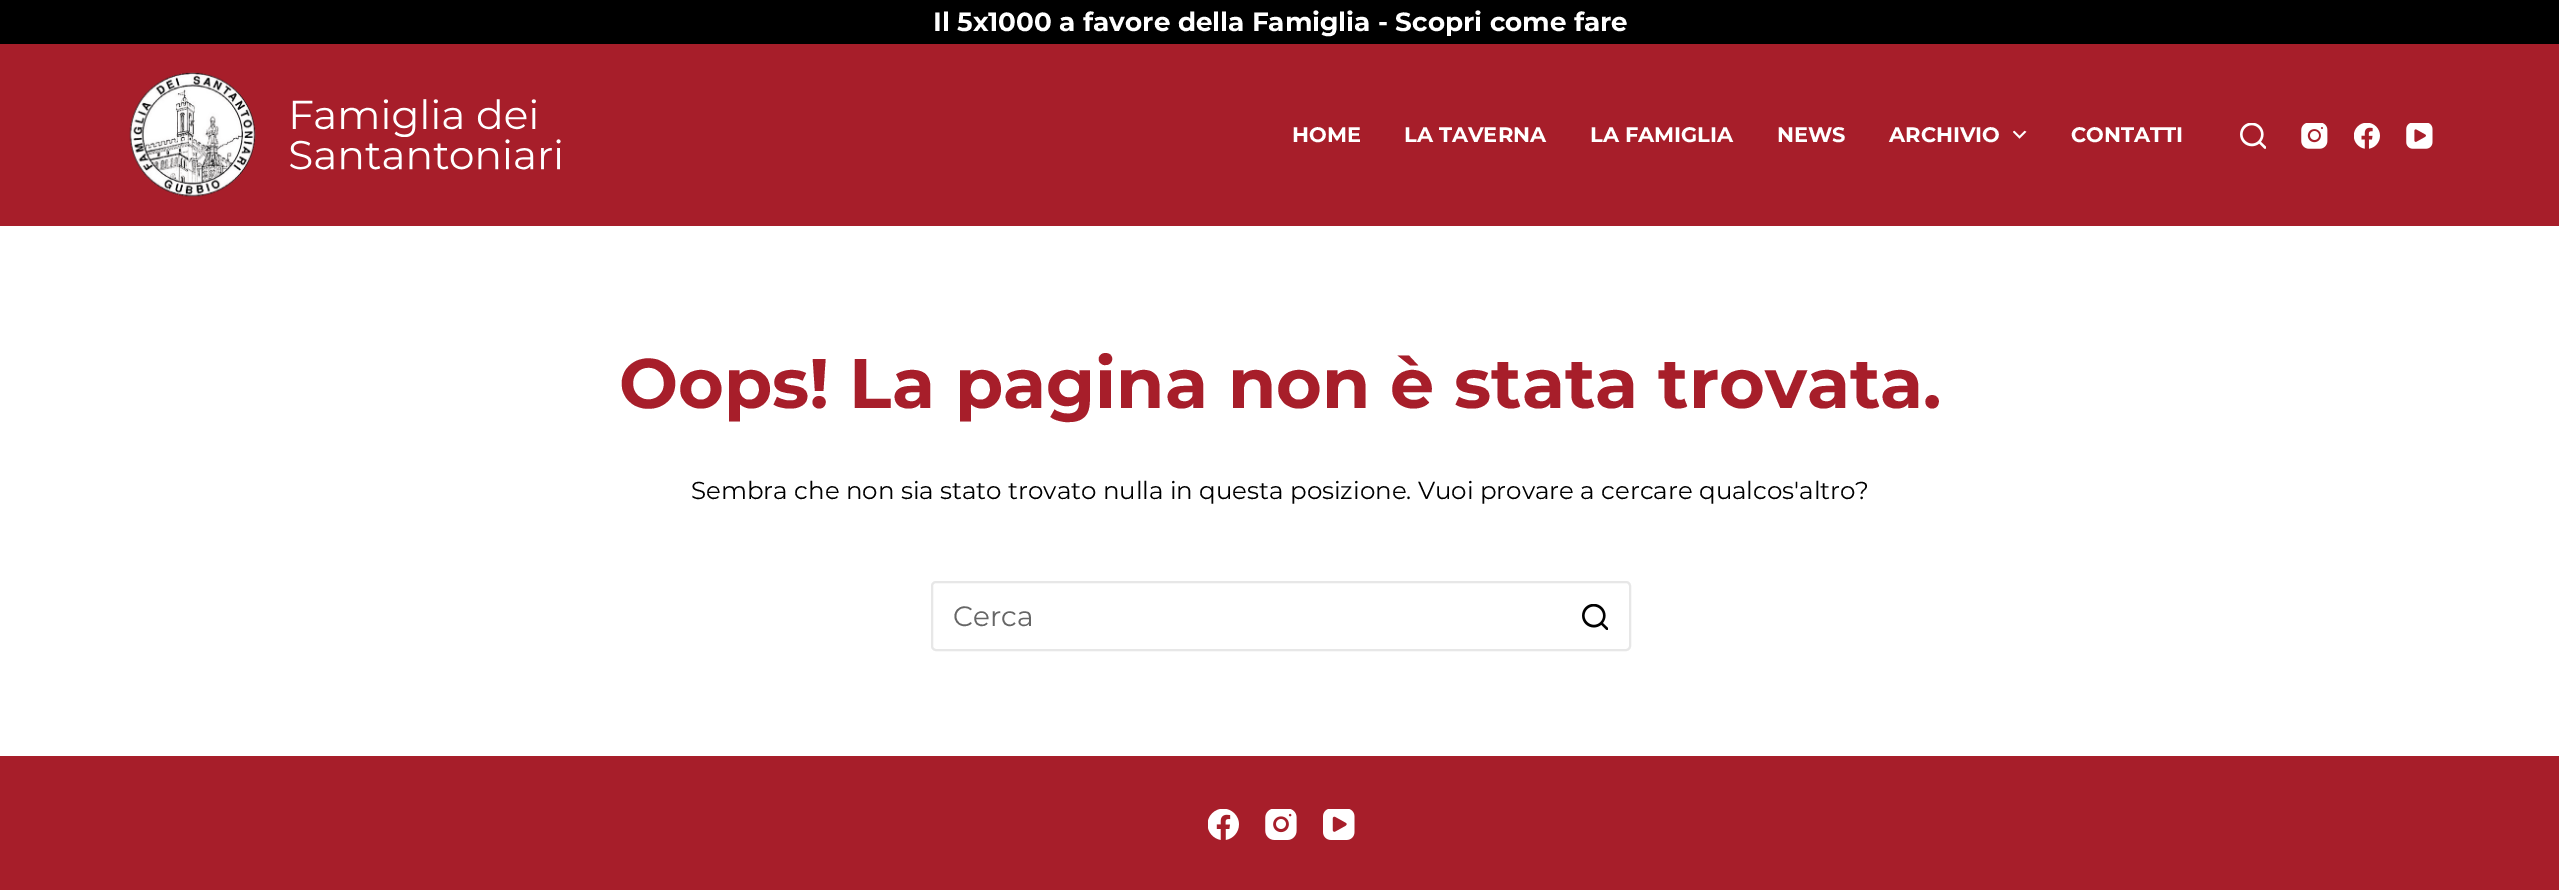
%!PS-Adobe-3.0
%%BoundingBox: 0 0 2559 890
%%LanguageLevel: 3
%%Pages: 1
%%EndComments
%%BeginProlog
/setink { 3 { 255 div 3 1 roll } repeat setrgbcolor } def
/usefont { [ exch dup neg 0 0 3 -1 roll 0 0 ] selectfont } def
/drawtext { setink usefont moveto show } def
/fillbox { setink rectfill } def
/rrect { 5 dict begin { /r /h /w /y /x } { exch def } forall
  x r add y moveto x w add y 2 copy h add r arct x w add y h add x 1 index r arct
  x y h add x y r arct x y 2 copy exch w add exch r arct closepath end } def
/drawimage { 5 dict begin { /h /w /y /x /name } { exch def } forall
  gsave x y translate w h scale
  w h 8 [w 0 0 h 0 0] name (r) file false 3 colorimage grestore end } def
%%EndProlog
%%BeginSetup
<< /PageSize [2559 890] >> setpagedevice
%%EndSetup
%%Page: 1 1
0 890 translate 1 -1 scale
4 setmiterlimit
0 0 2559 890 255 255 255 fillbox
0 0 2559 44 0 0 0 fillbox
(Il 5x1000 a favore della Famiglia - Scopri come fare) 933 31 /Montserrat-Bold 26.25 255 255 255 drawtext
0 44 2559 182 167 30 42 fillbox
(assets/img1.rgb) 129 72 432 125 drawimage
(HOME) 1292 142 /Montserrat-Bold 21 255 255 255 drawtext
(LA TAVERNA) 1404 142 /Montserrat-Bold 21 255 255 255 drawtext
(LA FAMIGLIA) 1590 142 /Montserrat-Bold 21 255 255 255 drawtext
(NEWS) 1777 142 /Montserrat-Bold 21 255 255 255 drawtext
(ARCHIVIO) 1889 142 /Montserrat-Bold 21 255 255 255 drawtext
(assets/img2.rgb) 2013 130 14 9 drawimage
(CONTATTI) 2071 142 /Montserrat-Bold 21 255 255 255 drawtext
(assets/img3.rgb) 2240 123 26 26 drawimage
(assets/img4.rgb) 2301 123 27 26 drawimage
(assets/img5.rgb) 2354 123 26 26 drawimage
(assets/img6.rgb) 2406 123 27 26 drawimage
(Oops! La pagina non è stata trovata.) 619 408 /Montserrat-Bold 70 167 30 42 drawtext
(Sembra che non sia stato trovato nulla in questa posizione. Vuoi provare a cercare qualcos'altro?) 691 499 /Montserrat-Regular 24.5 0 0 0 drawtext
231 231 231 setink
2 setlinewidth
932 582 698 68 4 rrect stroke
(Cerca) 953 626 /Montserrat-Regular 28 102 102 102 drawtext
(assets/img7.rgb) 1582 604 26 26 drawimage
0 756 2559 134 167 30 42 fillbox
(assets/img8.rgb) 1208 809 31 31 drawimage
(assets/img9.rgb) 1265 809 32 31 drawimage
(assets/img10.rgb) 1323 809 32 31 drawimage
showpage
%%EOF
